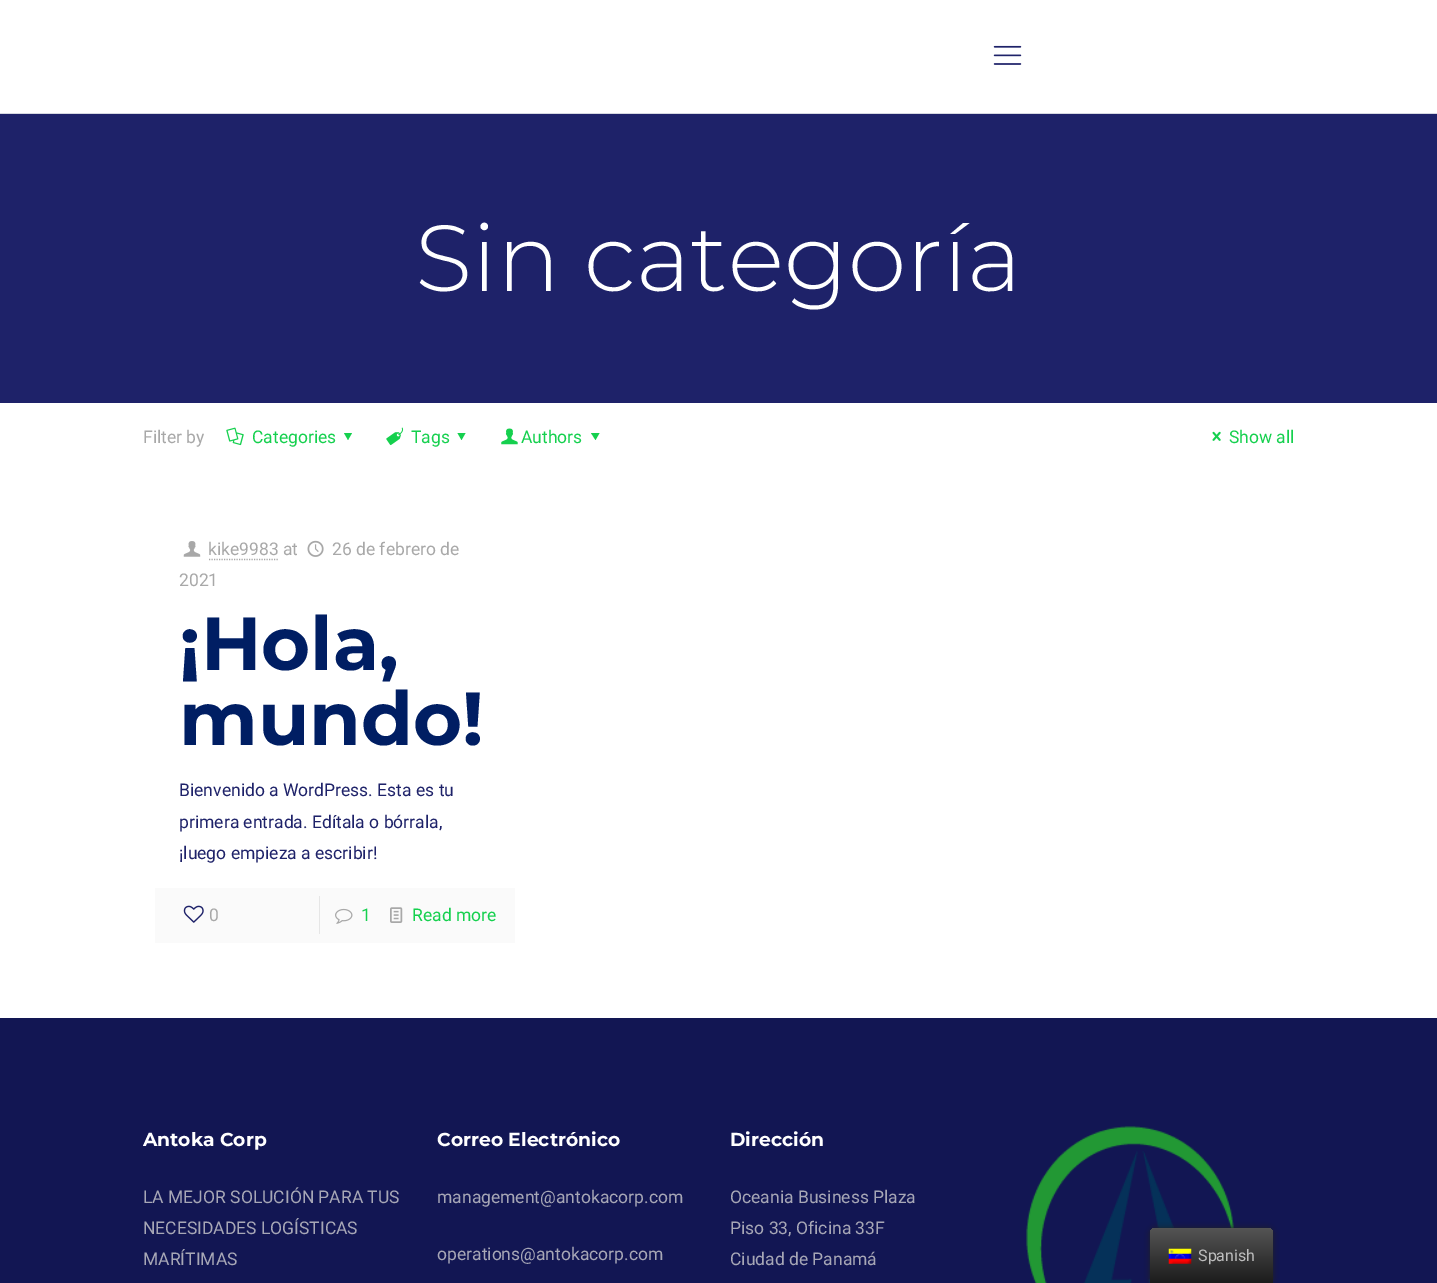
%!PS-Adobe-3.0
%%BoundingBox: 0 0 1437 1283
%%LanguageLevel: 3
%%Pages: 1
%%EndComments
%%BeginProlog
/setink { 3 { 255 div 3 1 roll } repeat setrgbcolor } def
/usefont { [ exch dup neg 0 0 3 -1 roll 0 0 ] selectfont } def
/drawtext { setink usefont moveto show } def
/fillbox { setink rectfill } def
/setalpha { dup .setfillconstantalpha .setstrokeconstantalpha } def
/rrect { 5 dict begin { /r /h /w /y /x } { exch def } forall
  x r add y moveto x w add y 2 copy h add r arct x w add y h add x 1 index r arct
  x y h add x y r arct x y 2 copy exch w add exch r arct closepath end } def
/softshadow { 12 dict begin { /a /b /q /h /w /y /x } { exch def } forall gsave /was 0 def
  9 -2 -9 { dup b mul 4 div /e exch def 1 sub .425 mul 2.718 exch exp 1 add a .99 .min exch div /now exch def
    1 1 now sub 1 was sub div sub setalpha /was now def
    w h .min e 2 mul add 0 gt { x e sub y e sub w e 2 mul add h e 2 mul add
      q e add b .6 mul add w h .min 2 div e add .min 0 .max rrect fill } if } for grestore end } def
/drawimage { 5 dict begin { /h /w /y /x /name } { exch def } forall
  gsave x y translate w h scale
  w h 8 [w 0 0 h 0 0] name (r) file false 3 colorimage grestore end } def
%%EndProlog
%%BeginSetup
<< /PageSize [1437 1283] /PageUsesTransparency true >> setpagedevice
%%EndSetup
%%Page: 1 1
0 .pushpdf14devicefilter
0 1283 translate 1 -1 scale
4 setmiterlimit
0 0 1437 1283 255 255 255 fillbox
0 113 1437 1 214 216 225 fillbox
(assets/img1.rgb) 993 45 29 20 drawimage
0 114 1437 289 30 34 105 fillbox
(Sin categoría) 415 291 /Montserrat-Light 93.75 255 255 255 drawtext
(Filter by) 143 443 /Roboto-Regular 17.5 168 168 168 drawtext
(assets/img2.rgb) 226 427 18 19 drawimage
(Categories) 252 443 /Roboto-Regular 17.5 21 208 78 drawtext
352 433 moveto 348 440 lineto 344 433 lineto closepath fill
(assets/img3.rgb) 386 427 18 19 drawimage
(Tags) 411 443 /Roboto-Regular 17.5 21 208 78 drawtext
465.5 433 moveto 461.5 440 lineto 457.5 433 lineto closepath fill
(assets/img4.rgb) 501 428 17 17 drawimage
(Authors) 521 443 /Roboto-Regular 17.5 21 208 78 drawtext
599.5 433 moveto 595.5 440 lineto 591 433 lineto closepath fill
(assets/img5.rgb) 1212 431 9 10 drawimage
(Show all) 1229 443 /Roboto-Regular 17.5 21 208 78 drawtext
(assets/img6.rgb) 307 540 17 17 drawimage
(26 de febrero de) 332 555 /Roboto-Regular 17.5 168 168 168 drawtext
(2021) 179 586 /Roboto-Regular 17.5 168 168 168 drawtext
(assets/img7.rgb) 183 541 18 16 drawimage
(kike9983 at) 208 555 /Roboto-Regular 17.5 168 168 168 drawtext
1.2 setlinewidth
[1.25 1.25] 0 setdash
209 559.5 moveto 279 559.5 lineto stroke
(¡Hola,) 179 670 /Montserrat-Bold 75 0 30 99 drawtext
(mundo!) 179 745 /Montserrat-Bold 75 0 30 99 drawtext
(Bienvenido a WordPress. Esta es tu) 179 796 /Roboto-Regular 17.5 30 34 105 drawtext
(primera entrada. Edítala o bórrala,) 179 828 /Roboto-Regular 17.5 30 34 105 drawtext
(¡luego empieza a escribir!) 179 859 /Roboto-Regular 17.5 30 34 105 drawtext
155 888 360 55 250 250 250 fillbox
(assets/img8.rgb) 183 905 21 18 drawimage
(0) 209 921 /Roboto-Regular 17.5 168 168 168 drawtext
319 896 1 38 230 230 230 fillbox
(assets/img9.rgb) 335 908 18 16 drawimage
(1) 361 921 /Roboto-Regular 17.5 21 208 78 drawtext
(assets/img10.rgb) 390 907 13 16 drawimage
(Read more) 412 921 /Roboto-Regular 17.5 21 208 78 drawtext
0 1018 1437 265 18 22 83 fillbox
(Antoka Corp) 143 1146 /Montserrat-Bold 18.75 255 255 255 drawtext
(LA MEJOR SOLUCIÓN PARA TUS) 143 1203 /Roboto-Regular 17.5 167 167 182 drawtext
(NECESIDADES LOGÍSTICAS) 143 1234 /Roboto-Regular 17.5 167 167 182 drawtext
(MARÍTIMAS) 143 1265 /Roboto-Regular 17.5 167 167 182 drawtext
(Correo Electrónico) 437 1146 /Montserrat-Bold 18.75 255 255 255 drawtext
(management@antokacorp.com) 437 1203 /Roboto-Regular 17.5 167 167 182 drawtext
(operations@antokacorp.com) 437 1260 /Roboto-Regular 17.5 167 167 182 drawtext
(Dirección) 730 1146 /Montserrat-Bold 18.75 255 255 255 drawtext
(Oceania Business Plaza) 730 1203 /Roboto-Regular 17.5 167 167 182 drawtext
(Piso 33, Oficina 33F) 730 1234 /Roboto-Regular 17.5 167 167 182 drawtext
(Ciudad de Panamá) 730 1265 /Roboto-Regular 17.5 167 167 182 drawtext
(assets/img11.rgb) 1026 1126 208 157 drawimage
33 33 33 setink
1150 1228 123 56 6 3 1 softshadow
gsave 1156 1228 moveto 1267 1228 lineto 1270.5 1228 1273 1230.5 1273 1234 curveto 1273 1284 lineto 1150 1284 lineto 1150 1234 lineto 1150 1230.5 1152.5 1228 1156 1228 curveto closepath clip newpath
<< /ShadingType 2 /ColorSpace /DeviceRGB /Coords [1211 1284 1211 1228] /Extend [true true] /Function << /FunctionType 2 /Domain [0 1] /C0 [0.106 0.106 0.106] /C1 [0.329 0.329 0.329] /N 1 >> >> shfill grestore
(assets/img12.rgb) 1168 1248 24 16 drawimage
(Spanish) 1198 1261 /Roboto-Regular 16 189 189 189 drawtext
.poppdf14devicefilter showpage
%%EOF
